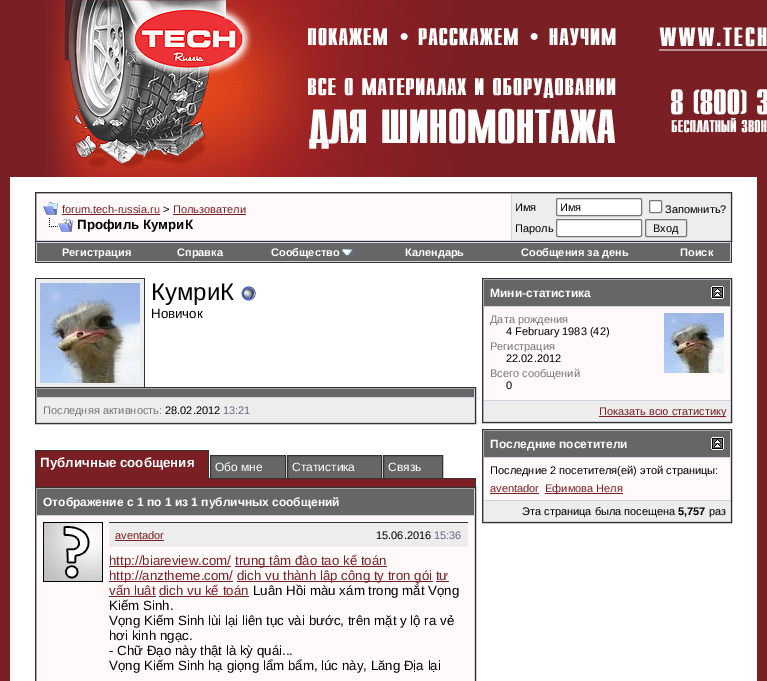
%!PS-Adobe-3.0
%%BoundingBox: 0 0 767 681
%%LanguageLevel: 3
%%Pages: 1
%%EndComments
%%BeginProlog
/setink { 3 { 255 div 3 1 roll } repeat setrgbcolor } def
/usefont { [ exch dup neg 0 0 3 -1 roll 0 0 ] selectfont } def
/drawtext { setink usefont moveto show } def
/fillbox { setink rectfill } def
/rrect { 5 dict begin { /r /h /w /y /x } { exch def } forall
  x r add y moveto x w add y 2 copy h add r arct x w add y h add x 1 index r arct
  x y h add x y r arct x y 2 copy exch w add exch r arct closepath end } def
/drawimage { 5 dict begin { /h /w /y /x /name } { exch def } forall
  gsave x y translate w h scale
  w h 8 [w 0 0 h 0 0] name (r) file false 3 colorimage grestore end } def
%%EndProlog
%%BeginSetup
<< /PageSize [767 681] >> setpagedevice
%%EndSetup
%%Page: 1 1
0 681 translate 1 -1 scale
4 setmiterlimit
0 0 767 681 122 31 36 fillbox
(assets/img1.rgb) 45 0 573 177 drawimage
(assets/img2.rgb) 654 24 113 112 drawimage
10 177 747 504 255 255 255 fillbox
209 209 225 setink
35.5 192.5 moveto 731.5 192.5 lineto 731.5 241.5 lineto 35.5 241.5 lineto closepath gsave fill grestore
51 51 51 setink
stroke
37 194 474 46 255 249 249 fillbox
(assets/img3.rgb) 43 202 15 13 drawimage
(forum.tech-russia.ru) 62 213 /LiberationSans-Regular 11 122 31 36 drawtext
62 214 98 1 122 31 36 fillbox
(>) 163 213 /LiberationSans-Regular 11 0 0 0 drawtext
(Пользователи) 173 213 /LiberationSans-Regular 11 122 31 36 drawtext
173 214 73 1 122 31 36 fillbox
(assets/img4.rgb) 49 218 24 14 drawimage
(Профиль КумриК) 77 229 /LiberationSans-Bold 13.3 0 0 0 drawtext
512 194 218 46 237 237 237 fillbox
(Имя) 515 211 /LiberationSans-Regular 11 0 0 0 drawtext
255 255 255 setink
556.5 198.5 85 17 1.5 rrect gsave fill grestore
118 118 118 setink
stroke
(Имя) 560 211 /LiberationSans-Regular 11 0 0 0 drawtext
255 255 255 setink
649.5 200.5 12 12 1.5 rrect gsave fill grestore
118 118 118 setink
stroke
(Запомнить?) 665 213 /LiberationSans-Regular 11 0 0 0 drawtext
(Пароль) 515 232 /LiberationSans-Regular 11 0 0 0 drawtext
255 255 255 setink
556.5 219.5 85 17 1.5 rrect gsave fill grestore
118 118 118 setink
stroke
645.5 219.5 41 17 1.5 rrect stroke
(Вход) 653 232 /LiberationSans-Regular 11 0 0 0 drawtext
36 242 695 20 209 209 225 fillbox
731 242 1 21 51 51 51 fillbox
35 262 697 1 51 51 51 fillbox
35 242 1 21 51 51 51 fillbox
37 243 693 18 102 102 102 fillbox
(Регистрация) 62 256 /LiberationSans-Bold 11 255 255 255 drawtext
(Справка) 177 256 /LiberationSans-Bold 11 255 255 255 drawtext
(Сообщество) 271 256 /LiberationSans-Bold 11 255 255 255 drawtext
(assets/img5.rgb) 342 249 11 7 drawimage
(Календарь) 405 256 /LiberationSans-Bold 11 255 255 255 drawtext
(Сообщения за день) 521 256 /LiberationSans-Bold 11 255 255 255 drawtext
(Поиск) 680 256 /LiberationSans-Bold 11 255 255 255 drawtext
36 279 108 108 237 237 237 fillbox
35 278 110 1 51 51 51 fillbox
144 278 1 109 51 51 51 fillbox
35 278 1 109 51 51 51 fillbox
(assets/img6.rgb) 40 283 100 100 drawimage
(КумриК) 151 300 /LiberationSans-Regular 24 0 0 0 drawtext
(assets/img7.rgb) 241 286 15 15 drawimage
(Новичок) 151 318 /LiberationSans-Regular 13.3 0 0 0 drawtext
209 209 225 setink
35.5 387.5 moveto 475.5 387.5 lineto 475.5 423.5 lineto 35.5 423.5 lineto closepath gsave fill grestore
51 51 51 setink
stroke
37 389 437 8 102 102 102 fillbox
37 398 437 24 237 237 237 fillbox
(Последняя активность:) 43 414 /LiberationSans-Regular 11 119 119 119 drawtext
(28.02.2012) 165 414 /LiberationSans-Regular 11 0 0 0 drawtext
(13:21) 223 414 /LiberationSans-Regular 11 102 102 134 drawtext
36 451 172 28 122 31 36 fillbox
35 450 174 1 51 51 51 fillbox
208 450 1 29 51 51 51 fillbox
35 478 1 9 51 51 51 fillbox
35 450 1 29 51 51 51 fillbox
(Публичные сообщения) 40 467 /LiberationSans-Bold 13.3 255 255 255 drawtext
209 478 267 1 51 51 51 fillbox
102 102 102 setink
210.5 455.5 moveto 285.5 455.5 lineto 285.5 478.5 lineto 210.5 478.5 lineto closepath gsave fill grestore
51 51 51 setink
stroke
(Обо мне) 215 471 /LiberationSans-Regular 12 255 255 255 drawtext
102 102 102 setink
287.5 455.5 moveto 381.5 455.5 lineto 381.5 478.5 lineto 287.5 478.5 lineto closepath gsave fill grestore
51 51 51 setink
stroke
(Статистика) 292 471 /LiberationSans-Regular 12 255 255 255 drawtext
102 102 102 setink
383.5 455.5 moveto 442.5 455.5 lineto 442.5 478.5 lineto 383.5 478.5 lineto closepath gsave fill grestore
51 51 51 setink
stroke
(Связь) 388 471 /LiberationSans-Regular 12 255 255 255 drawtext
36 479 439 8 122 31 36 fillbox
475 478 1 9 51 51 51 fillbox
209 209 225 setink
35.5 487.5 moveto 475.5 487.5 lineto 475.5 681.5 lineto 35.5 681.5 lineto closepath gsave fill grestore
51 51 51 setink
stroke
37 489 437 26 102 102 102 fillbox
(Отображение с 1 по 1 из 1 публичных сообщений) 43 506 /LiberationSans-Bold 12 255 255 255 drawtext
37 516 437 165 255 249 249 fillbox
(assets/img8.rgb) 43 522 60 60 drawimage
109 522 359 1 51 51 51 fillbox
109 523 359 24 237 237 237 fillbox
(aventador) 115 539 /LiberationSans-Regular 11 122 31 36 drawtext
115 540 49 1 122 31 36 fillbox
(15.06.2016) 376 539 /LiberationSans-Regular 11 0 0 0 drawtext
(15:36) 434 539 /LiberationSans-Regular 11 102 102 134 drawtext
109 566 122 1 122 31 36 fillbox
(http://biareview.com/) 109 565 /LiberationSans-Regular 13.3 122 31 36 drawtext
235 566 152 1 122 31 36 fillbox
(trung tâm đào tạo kế toán) 235 565 /LiberationSans-Regular 13.3 122 31 36 drawtext
109 581 124 1 122 31 36 fillbox
(http://anztheme.com/) 109 580 /LiberationSans-Regular 13.3 122 31 36 drawtext
237 581 196 1 122 31 36 fillbox
(dịch vụ thành lập công ty trọn gói tư) 237 580 /LiberationSans-Regular 13.3 122 31 36 drawtext
109 596 47 1 122 31 36 fillbox
(vấn luật) 109 595 /LiberationSans-Regular 13.3 122 31 36 drawtext
436 581 13 1 122 31 36 fillbox
159 596 90 1 122 31 36 fillbox
(dịch vụ kế toán) 159 595 /LiberationSans-Regular 13.3 122 31 36 drawtext
(Luân Hồi màu xám trong mắt Vọng) 253 595 /LiberationSans-Regular 13.3 0 0 0 drawtext
(Kiếm Sinh.) 109 610 /LiberationSans-Regular 13.3 0 0 0 drawtext
(Vọng Kiếm Sinh lùi lại liên tục vài bước, trên mặt y lộ ra vẻ) 109 625 /LiberationSans-Regular 13.3 0 0 0 drawtext
(hơi kinh ngạc.) 109 640 /LiberationSans-Regular 13.3 0 0 0 drawtext
(- Chữ Đạo này thật là kỳ quái...) 109 655 /LiberationSans-Regular 13.3 0 0 0 drawtext
(Vọng Kiếm Sinh hạ giọng lẩm bẩm, lúc này, Lăng Địa lại) 109 670 /LiberationSans-Regular 13.3 0 0 0 drawtext
209 209 225 setink
482.5 278.5 moveto 731.5 278.5 lineto 731.5 422.5 lineto 482.5 422.5 lineto closepath gsave fill grestore
51 51 51 setink
stroke
484 280 246 26 102 102 102 fillbox
(Мини-статистика) 490 297 /LiberationSans-Bold 12 255 255 255 drawtext
(assets/img9.rgb) 711 286 13 13 drawimage
484 307 246 93 255 249 249 fillbox
(Дата рождения) 490 323 /LiberationSans-Regular 11 119 119 119 drawtext
(4 February 1983 \(42\)) 506 335 /LiberationSans-Regular 11 0 0 0 drawtext
(Регистрация) 490 350 /LiberationSans-Regular 11 119 119 119 drawtext
(22.02.2012) 506 362 /LiberationSans-Regular 11 0 0 0 drawtext
(Всего сообщений) 490 377 /LiberationSans-Regular 11 119 119 119 drawtext
(0) 506 389 /LiberationSans-Regular 11 0 0 0 drawtext
(assets/img10.rgb) 664 313 60 60 drawimage
484 401 246 20 237 237 237 fillbox
599 416 127 1 122 31 36 fillbox
(Показать всю статистику) 599 415 /LiberationSans-Regular 11 122 31 36 drawtext
209 209 225 setink
482.5 429.5 moveto 731.5 429.5 lineto 731.5 522.5 lineto 482.5 522.5 lineto closepath gsave fill grestore
51 51 51 setink
stroke
484 431 246 26 102 102 102 fillbox
(Последние посетители) 490 448 /LiberationSans-Bold 12 255 255 255 drawtext
(assets/img9.rgb) 711 437 13 13 drawimage
484 458 246 42 255 249 249 fillbox
(Последние 2 посетителя\(ей\) этой страницы:) 490 474 /LiberationSans-Regular 11 0 0 0 drawtext
(aventador) 490 492 /LiberationSans-Regular 11 122 31 36 drawtext
490 493 49 1 122 31 36 fillbox
545 493 78 1 122 31 36 fillbox
(Ефимова Неля) 545 492 /LiberationSans-Regular 11 122 31 36 drawtext
484 501 246 20 237 237 237 fillbox
(Эта страница была посещена) 522 515 /LiberationSans-Regular 11 0 0 0 drawtext
(5,757) 678 515 /LiberationSans-Bold 11 0 0 0 drawtext
(раз) 709 515 /LiberationSans-Regular 11 0 0 0 drawtext
showpage
%%EOF
